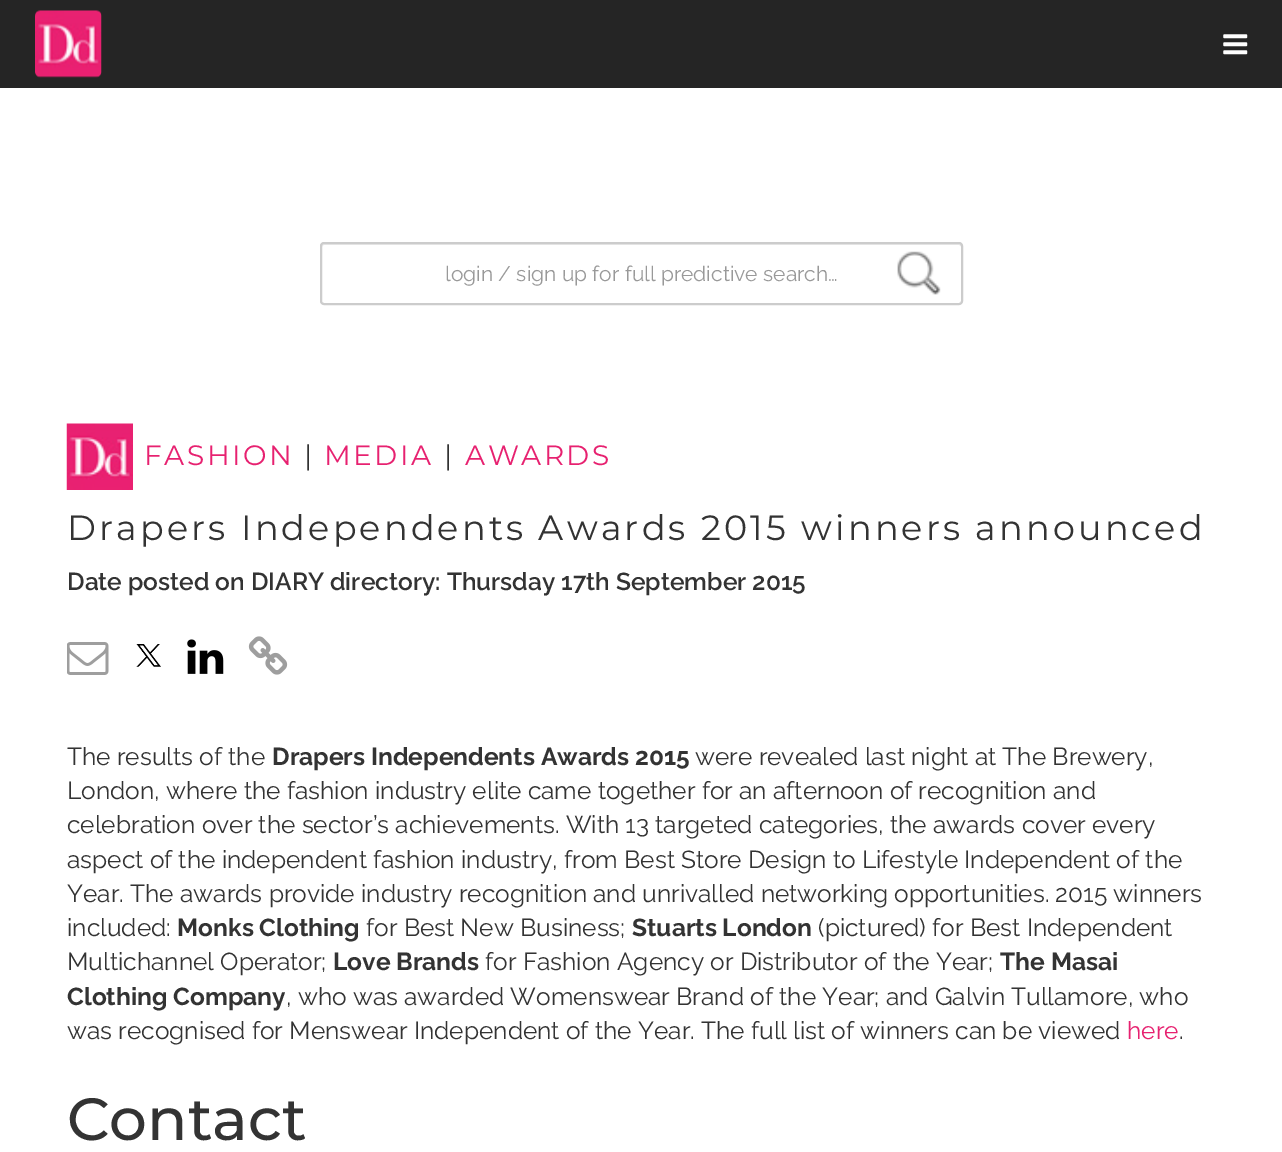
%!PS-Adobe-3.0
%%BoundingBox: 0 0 1282 1152
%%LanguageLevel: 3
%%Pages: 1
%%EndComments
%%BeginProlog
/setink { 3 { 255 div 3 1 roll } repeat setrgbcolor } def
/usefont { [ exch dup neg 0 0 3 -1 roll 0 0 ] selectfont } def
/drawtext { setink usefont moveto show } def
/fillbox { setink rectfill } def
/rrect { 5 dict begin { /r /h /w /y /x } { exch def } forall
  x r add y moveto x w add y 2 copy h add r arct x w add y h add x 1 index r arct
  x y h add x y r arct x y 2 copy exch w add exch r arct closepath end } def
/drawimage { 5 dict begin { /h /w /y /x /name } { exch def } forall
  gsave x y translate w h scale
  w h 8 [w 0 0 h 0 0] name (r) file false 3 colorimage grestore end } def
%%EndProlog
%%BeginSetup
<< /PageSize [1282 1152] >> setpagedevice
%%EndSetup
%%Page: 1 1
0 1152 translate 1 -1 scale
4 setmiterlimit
0 0 1282 1152 255 255 255 fillbox
0 0 1282 88 37 37 37 fillbox
(assets/img1.rgb) 35 10 67 68 drawimage
(assets/img2.rgb) 1223 34 25 21 drawimage
(assets/img3.rgb) 897 251 44 44 drawimage
236 236 236 setink
324 245 moveto 959 245 lineto 960 245 961 246 961 247 curveto 961 245 961 243 959 243 curveto 324 243 lineto 322 244 lineto 322 247 lineto 322 246 323 245 324 245 curveto closepath fill
204 204 204 setink
2 setlinewidth
321 243 641 61 3 rrect stroke
(login / sign up for full predictive search…) 445 281 /Raleway-Regular 21 153 153 153 drawtext
(assets/img4.rgb) 66 423 67 67 drawimage
/Montserrat-Regular 28 usefont
231 33 112 setink
144 465 moveto 2.5 0 (FASHION) ashow
51 51 51 setink
304 465 moveto 2.5 0 (|) ashow
231 33 112 setink
324 465 moveto 2.5 0 (MEDIA) ashow
51 51 51 setink
444 465 moveto 2.5 0 (|) ashow
231 33 112 setink
465 465 moveto 2.5 0 (AWARDS) ashow
/Montserrat-Regular 35 usefont
51 51 51 setink
67 540 moveto 3.15 0 (Drapers Independents Awards 2015 winners announced) ashow
(Date posted on DIARY directory: Thursday 17th September 2015) 67 590 /Raleway-SemiBold 24.5 51 51 51 drawtext
(assets/img5.rgb) 67 642 42 33 drawimage
(assets/img6.rgb) 136 644 25 23 drawimage
(assets/img7.rgb) 187 639 37 35 drawimage
(assets/img8.rgb) 248 636 40 39 drawimage
(The results of the) 67 765 /Raleway-Regular 24.5 51 51 51 drawtext
(Drapers Independents Awards 2015) 272 765 /Raleway-Bold 24.5 51 51 51 drawtext
(were revealed last night at The Brewery,) 695 765 /Raleway-Regular 24.5 51 51 51 drawtext
(London, where the fashion industry elite came together for an afternoon of recognition and) 67 799 /Raleway-Regular 24.5 51 51 51 drawtext
(celebration over the sector’s achievements. With 13 targeted categories, the awards cover every) 67 833 /Raleway-Regular 24.5 51 51 51 drawtext
(aspect of the independent fashion industry, from Best Store Design to Lifestyle Independent of the) 67 868 /Raleway-Regular 24.5 51 51 51 drawtext
(Year. The awards provide industry recognition and unrivalled networking opportunities. 2015 winners) 67 902 /Raleway-Regular 24.5 51 51 51 drawtext
(included:) 67 936 /Raleway-Regular 24.5 51 51 51 drawtext
(Monks Clothing) 177 936 /Raleway-Bold 24.5 51 51 51 drawtext
(for Best New Business;) 366 936 /Raleway-Regular 24.5 51 51 51 drawtext
(Stuarts London) 632 936 /Raleway-Bold 24.5 51 51 51 drawtext
(\(pictured\) for Best Independent) 818 936 /Raleway-Regular 24.5 51 51 51 drawtext
(Multichannel Operator;) 67 970 /Raleway-Regular 24.5 51 51 51 drawtext
(Love Brands) 333 970 /Raleway-Bold 24.5 51 51 51 drawtext
(for Fashion Agency or Distributor of the Year;) 485 970 /Raleway-Regular 24.5 51 51 51 drawtext
(The Masai) 1000 970 /Raleway-Bold 24.5 51 51 51 drawtext
(Clothing Company) 67 1005 /Raleway-Bold 24.5 51 51 51 drawtext
(, who was awarded Womenswear Brand of the Year; and Galvin Tullamore, who) 286 1005 /Raleway-Regular 24.5 51 51 51 drawtext
(was recognised for Menswear Independent of the Year. The full list of winners can be viewed) 67 1039 /Raleway-Regular 24.5 51 51 51 drawtext
(here) 1127 1039 /Raleway-Regular 24.5 231 33 112 drawtext
(.) 1179 1039 /Raleway-Regular 24.5 51 51 51 drawtext
(Contact) 67 1140 /Montserrat-Medium 59.5 51 51 51 drawtext
showpage
%%EOF
